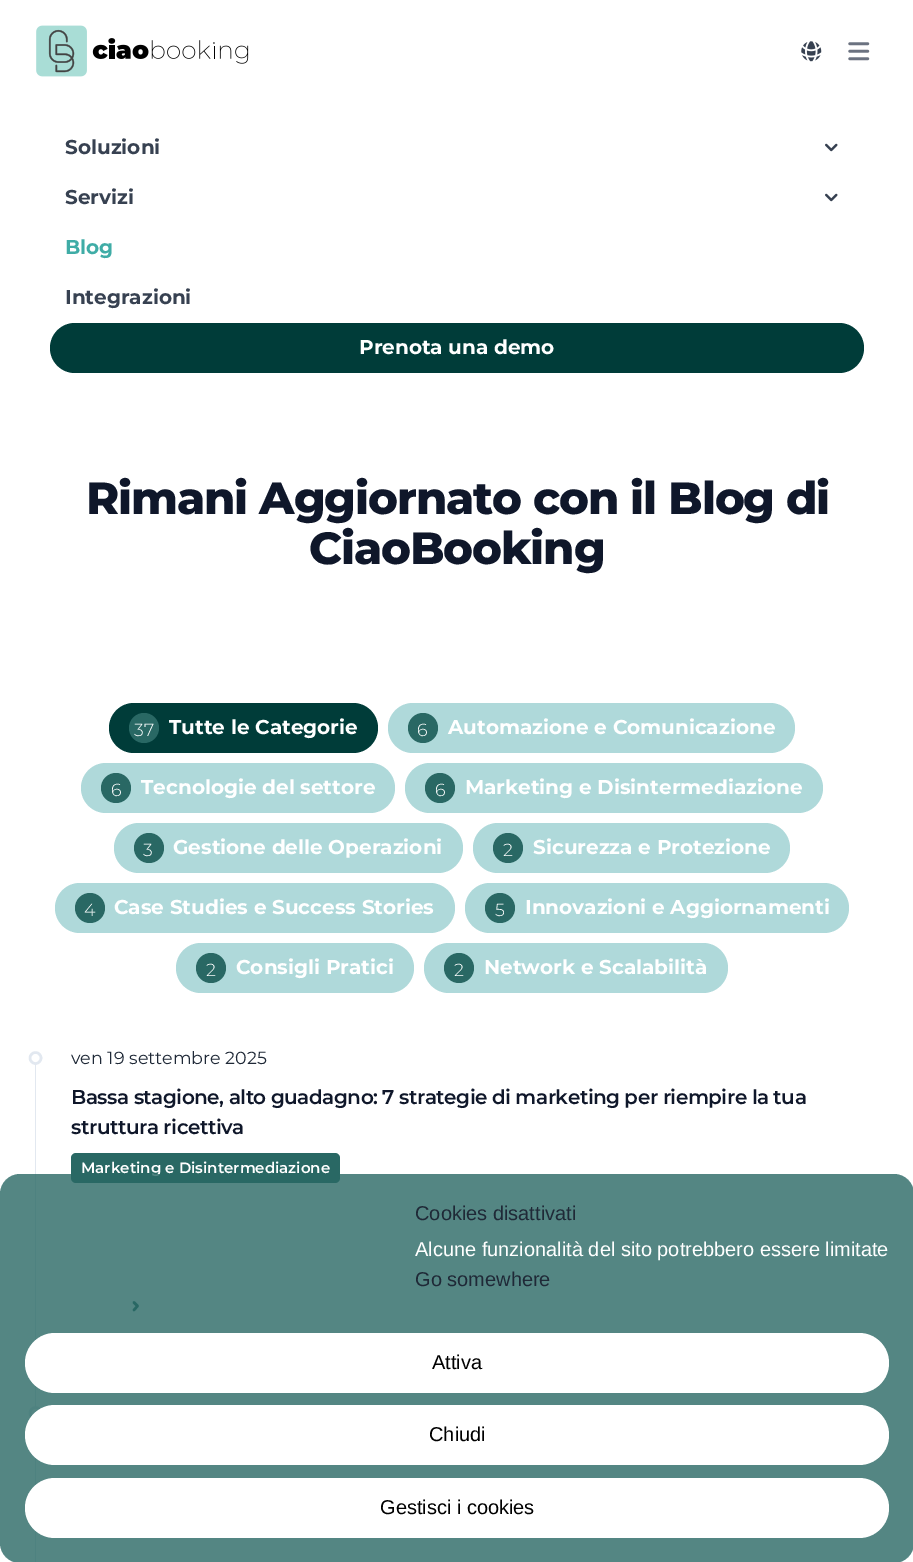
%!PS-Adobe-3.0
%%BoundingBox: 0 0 913 1562
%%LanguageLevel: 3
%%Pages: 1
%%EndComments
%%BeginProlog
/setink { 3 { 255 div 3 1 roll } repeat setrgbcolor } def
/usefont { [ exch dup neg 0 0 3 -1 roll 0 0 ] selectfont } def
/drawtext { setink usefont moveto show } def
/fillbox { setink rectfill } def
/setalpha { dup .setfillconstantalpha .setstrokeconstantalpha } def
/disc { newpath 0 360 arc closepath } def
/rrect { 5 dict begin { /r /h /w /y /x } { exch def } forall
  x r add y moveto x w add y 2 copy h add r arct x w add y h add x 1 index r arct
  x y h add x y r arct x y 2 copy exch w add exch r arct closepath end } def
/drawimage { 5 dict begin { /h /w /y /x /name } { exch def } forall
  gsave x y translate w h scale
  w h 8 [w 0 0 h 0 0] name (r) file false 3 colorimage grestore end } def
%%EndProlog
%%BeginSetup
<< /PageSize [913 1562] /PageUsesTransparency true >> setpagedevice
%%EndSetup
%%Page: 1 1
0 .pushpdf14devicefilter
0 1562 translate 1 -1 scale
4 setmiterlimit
0 0 913 1562 255 255 255 fillbox
(assets/img1.rgb) 36 25 213 52 drawimage
(assets/img2.rgb) 801 41 21 21 drawimage
(assets/img3.rgb) 848 42 22 19 drawimage
(Soluzioni) 65 154 /Montserrat-Bold 20 55 65 81 drawtext
(assets/img4.rgb) 825 143 13 9 drawimage
(Servizi) 65 204 /Montserrat-Bold 20 55 65 81 drawtext
(assets/img4.rgb) 825 193 13 9 drawimage
(Blog) 65 254 /Montserrat-Bold 20 63 172 166 drawtext
(Integrazioni) 65 304 /Montserrat-Bold 20 55 65 81 drawtext
0 60 57 setink
50 323 814 50 25 rrect fill
(Prenota una demo) 359 354 /Montserrat-Bold 20 255 255 255 drawtext
/Montserrat-ExtraBold 45 usefont
15 23 42 setink
86 514 moveto -1.1 0 (Rimani Aggiornato con il Blog di) ashow
309 564 moveto -1.1 0 (CiaoBooking) ashow
0 60 57 setink
109 703 269 50 25 rrect fill
41 104 100 setink
144 728 15 disc fill
(37) 134 736 /Montserrat-Light 17.5 255 255 255 drawtext
(Tutte le Categorie) 169 734 /Montserrat-Bold 20 255 255 255 drawtext
175 217 218 setink
388 703 407 50 25 rrect fill
41 104 100 setink
423 728 15 disc fill
(6) 417 736 /Montserrat-Light 17.5 255 255 255 drawtext
(Automazione e Comunicazione) 448 734 /Montserrat-Bold 20 255 255 255 drawtext
175 217 218 setink
81 763 314 50 25 rrect fill
41 104 100 setink
116 788 15 disc fill
(6) 111 796 /Montserrat-Light 17.5 255 255 255 drawtext
(Tecnologie del settore) 141 794 /Montserrat-Bold 20 255 255 255 drawtext
175 217 218 setink
405 763 418 50 25 rrect fill
41 104 100 setink
440 788 15 disc fill
(6) 435 796 /Montserrat-Light 17.5 255 255 255 drawtext
(Marketing e Disintermediazione) 465 794 /Montserrat-Bold 20 255 255 255 drawtext
175 217 218 setink
114 823 349 50 25 rrect fill
41 104 100 setink
149 848 15 disc fill
(3) 143 856 /Montserrat-Light 17.5 255 255 255 drawtext
(Gestione delle Operazioni) 173 854 /Montserrat-Bold 20 255 255 255 drawtext
175 217 218 setink
473 823 317 50 25 rrect fill
41 104 100 setink
508 848 15 disc fill
(2) 503 856 /Montserrat-Light 17.5 255 255 255 drawtext
(Sicurezza e Protezione) 533 854 /Montserrat-Bold 20 255 255 255 drawtext
175 217 218 setink
55 883 400 50 25 rrect fill
41 104 100 setink
90 908 15 disc fill
(4) 84 916 /Montserrat-Light 17.5 255 255 255 drawtext
(Case Studies e Success Stories) 114 914 /Montserrat-Bold 20 255 255 255 drawtext
175 217 218 setink
465 883 384 50 25 rrect fill
41 104 100 setink
500 908 15 disc fill
(5) 495 916 /Montserrat-Light 17.5 255 255 255 drawtext
(Innovazioni e Aggiornamenti) 525 914 /Montserrat-Bold 20 255 255 255 drawtext
175 217 218 setink
176 943 238 50 25 rrect fill
41 104 100 setink
211 968 15 disc fill
(2) 206 976 /Montserrat-Light 17.5 255 255 255 drawtext
(Consigli Pratici) 236 974 /Montserrat-Bold 20 255 255 255 drawtext
175 217 218 setink
424 943 304 50 25 rrect fill
41 104 100 setink
459 968 15 disc fill
(2) 454 976 /Montserrat-Light 17.5 255 255 255 drawtext
(Network e Scalabilità) 484 974 /Montserrat-Bold 20 255 255 255 drawtext
35 1058 1 504 226 232 240 fillbox
255 255 255 setink
35.5 1058 5.5 disc gsave fill grestore
226 232 240 setink
2.5 setlinewidth
stroke
(ven 19 settembre 2025) 71 1064 /Montserrat-Regular 17.5 31 41 55 drawtext
/Montserrat-SemiBold 20 usefont
15 23 42 setink
71 1104 moveto -0.5 0 (Bassa stagione, alto guadagno: 7 strategie di marketing per riempire la tua) ashow
71 1134 moveto -0.5 0 (struttura ricettiva) ashow
41 104 100 setink
71 1153 269 30 5 rrect fill
(Marketing e Disintermediazione) 81 1173 /Montserrat-SemiBold 15 255 255 255 drawtext
41 104 100 setink
1 setlinecap
1 setlinejoin
134 1302.5 moveto 137.5 1306 lineto 134 1310 lineto stroke
255 255 255 setink
35.5 1413 5.5 disc gsave fill grestore
226 232 240 setink
0 setlinecap
0 setlinejoin
stroke
0.8 setalpha
41 104 100 setink
0 1174 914 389 20 rrect fill
1 setalpha
(Cookies disattivati) 415 1220 /LiberationSans-Regular 20 31 41 55 drawtext
(Alcune funzionalità del sito potrebbero essere limitate) 415 1256 /LiberationSans-Regular 20 255 255 255 drawtext
(Go somewhere) 415 1286 /LiberationSans-Regular 20 31 41 55 drawtext
255 255 255 setink
25 1333 864 60 30 rrect fill
(Attiva) 432 1369 /LiberationSans-Regular 20 0 0 0 drawtext
255 255 255 setink
25 1405 864 60 30 rrect fill
(Chiudi) 429 1441 /LiberationSans-Regular 20 0 0 0 drawtext
255 255 255 setink
25 1478 864 60 30 rrect fill
(Gestisci i cookies) 380 1514 /LiberationSans-Regular 20 0 0 0 drawtext
.poppdf14devicefilter showpage
%%EOF
